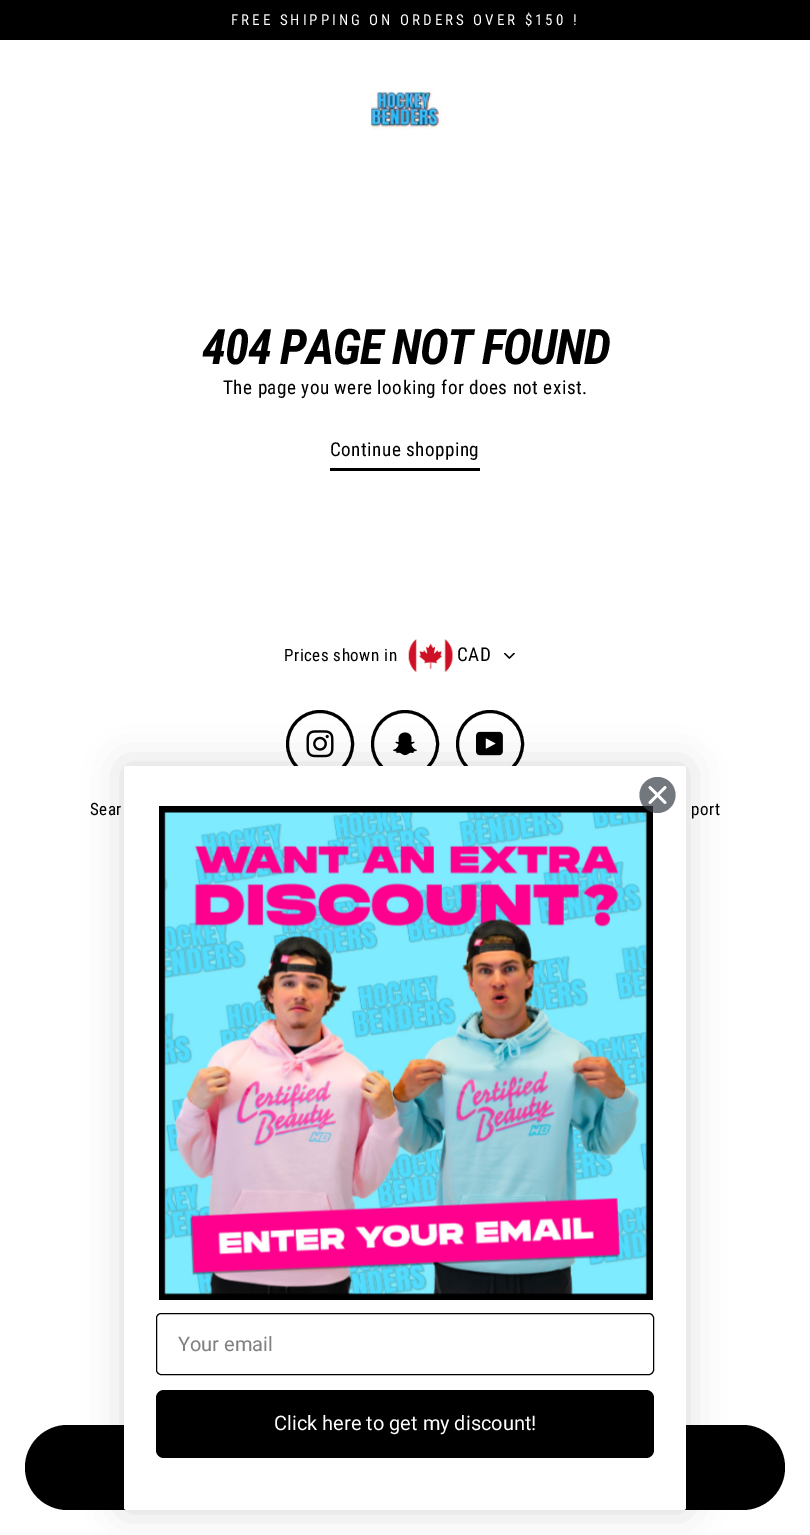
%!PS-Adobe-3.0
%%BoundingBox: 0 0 810 1535
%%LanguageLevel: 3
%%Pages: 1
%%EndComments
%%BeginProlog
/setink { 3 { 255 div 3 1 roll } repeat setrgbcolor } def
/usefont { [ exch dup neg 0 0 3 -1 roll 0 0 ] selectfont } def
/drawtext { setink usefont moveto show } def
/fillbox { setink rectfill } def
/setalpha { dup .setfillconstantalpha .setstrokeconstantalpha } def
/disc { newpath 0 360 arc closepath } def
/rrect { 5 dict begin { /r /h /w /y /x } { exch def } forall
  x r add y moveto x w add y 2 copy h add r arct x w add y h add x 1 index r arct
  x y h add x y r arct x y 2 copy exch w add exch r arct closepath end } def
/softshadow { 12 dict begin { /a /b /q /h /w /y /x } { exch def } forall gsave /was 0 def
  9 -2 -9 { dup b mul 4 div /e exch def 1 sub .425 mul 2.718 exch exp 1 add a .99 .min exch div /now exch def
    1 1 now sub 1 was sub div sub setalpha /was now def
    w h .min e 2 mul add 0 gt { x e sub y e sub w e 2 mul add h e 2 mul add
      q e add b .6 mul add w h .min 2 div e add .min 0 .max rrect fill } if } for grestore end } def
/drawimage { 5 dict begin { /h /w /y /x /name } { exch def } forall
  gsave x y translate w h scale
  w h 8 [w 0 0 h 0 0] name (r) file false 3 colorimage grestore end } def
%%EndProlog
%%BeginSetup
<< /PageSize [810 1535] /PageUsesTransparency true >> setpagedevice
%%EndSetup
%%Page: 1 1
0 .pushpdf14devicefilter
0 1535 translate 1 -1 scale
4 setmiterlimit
0 0 810 1535 255 255 255 fillbox
0 0 810 40 0 0 0 fillbox
/RobotoCondensed-Regular 15 usefont
255 255 255 setink
231 25 moveto 3 0 (FREE SHIPPING ON ORDERS OVER $150 !) ashow
(assets/img1.rgb) 370 89 72 41 drawimage
0 0 0 setink
25 1425 760 85 42.5 rrect fill
/RobotoCondensed-BoldItalic 49 usefont
202 364 moveto -1.25 0 (404 PAGE NOT FOUND) ashow
/RobotoCondensed-Regular 19.1 usefont
223 394 moveto 0.5 0 (The page you were looking for does not exist.) ashow
330 468 150 3 0 0 0 fillbox
330 456 moveto 0.5 0 (Continue shopping) ashow
/RobotoCondensed-Regular 17 usefont
284 661 moveto 0.5 0 (Prices shown in) ashow
(assets/img2.rgb) 408 639 45 34 drawimage
(assets/img3.rgb) 504 653 11 6 drawimage
/RobotoCondensed-Regular 19.1 usefont
457 661 moveto 0.5 0 (CAD) ashow
3 setlinewidth
320 744 32.5 disc stroke
(assets/img4.rgb) 306 730 28 28 drawimage
405 744 32.5 disc stroke
(assets/img5.rgb) 393 732 24 24 drawimage
490 744 32.5 disc stroke
(assets/img6.rgb) 476 731 27 25 drawimage
/RobotoCondensed-Regular 17 usefont
90 815 moveto 0.5 0 (Sear) ashow
691 815 moveto 0.5 0 (port) ashow
124 766 562 744 0 19 0.15 softshadow
255 255 255 setink
124 766 562 744 2.5 rrect fill
159 806 494 494 0 0 0 fillbox
(assets/img7.rgb) 164 812 483 483 drawimage
0.7 setalpha
55 63 71 setink
657.5 795 18 disc fill
1 setalpha
255 255 255 setink
2.8 setlinewidth
1 setlinecap
1 setlinejoin
650 787.5 moveto 665 802.5 lineto 650 802.5 moveto 665 787.5 lineto closepath stroke
0 0 0 setink
1 setlinewidth
0 setlinecap
0 setlinejoin
156.5 1313.5 497 61 4.5 rrect stroke
(Your email) 178 1351 /Roboto-Regular 20 128 128 128 drawtext
0 0 0 setink
156 1390 498 68 8 rrect fill
(Click here to get my discount!) 274 1430 /Roboto-Regular 20 255 255 255 drawtext
.poppdf14devicefilter showpage
%%EOF
